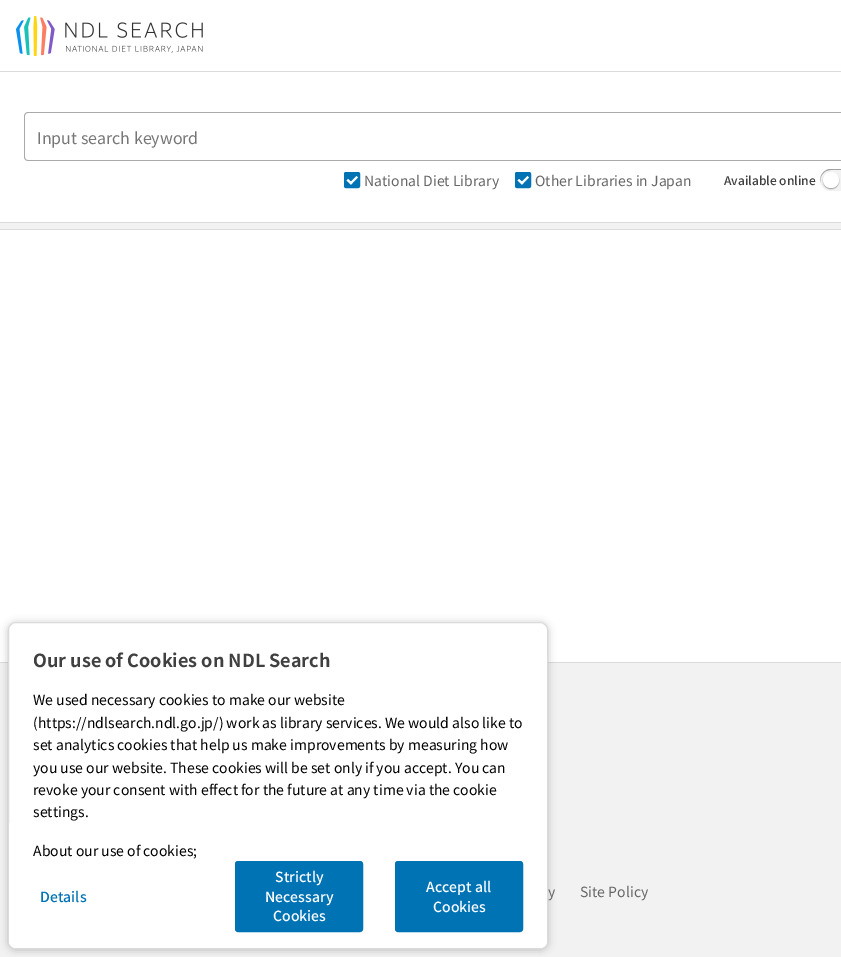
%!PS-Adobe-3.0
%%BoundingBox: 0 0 841 957
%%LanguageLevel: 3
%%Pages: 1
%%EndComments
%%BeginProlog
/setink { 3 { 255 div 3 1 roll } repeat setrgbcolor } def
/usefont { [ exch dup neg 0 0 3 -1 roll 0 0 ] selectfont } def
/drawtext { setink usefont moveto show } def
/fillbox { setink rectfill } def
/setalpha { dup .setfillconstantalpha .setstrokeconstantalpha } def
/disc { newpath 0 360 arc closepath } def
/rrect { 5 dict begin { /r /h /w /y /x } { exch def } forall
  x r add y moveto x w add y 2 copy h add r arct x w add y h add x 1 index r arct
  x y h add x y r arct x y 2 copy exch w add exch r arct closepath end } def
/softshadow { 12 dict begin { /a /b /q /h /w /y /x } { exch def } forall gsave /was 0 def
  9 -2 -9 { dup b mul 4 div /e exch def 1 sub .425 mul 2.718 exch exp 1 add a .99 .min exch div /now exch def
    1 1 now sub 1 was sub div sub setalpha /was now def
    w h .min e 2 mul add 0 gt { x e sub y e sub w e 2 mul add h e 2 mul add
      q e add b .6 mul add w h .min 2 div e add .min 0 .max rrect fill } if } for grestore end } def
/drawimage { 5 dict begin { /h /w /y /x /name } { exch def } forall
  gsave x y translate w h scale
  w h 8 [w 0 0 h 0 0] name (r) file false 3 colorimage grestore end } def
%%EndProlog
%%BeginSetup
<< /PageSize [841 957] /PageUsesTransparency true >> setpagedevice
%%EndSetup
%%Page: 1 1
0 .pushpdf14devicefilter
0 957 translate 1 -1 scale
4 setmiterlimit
0 0 841 957 255 255 255 fillbox
0 71 841 1 219 219 219 fillbox
(assets/img1.rgb) 16 16 187 40 drawimage
170 170 170 setink
28 112 moveto 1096 112 lineto 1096 161 lineto 28 161 lineto 26 161 24 159 24 157 curveto 24 116 lineto 24 114 26 112 28 112 curveto closepath 28 113 moveto 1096 113 lineto 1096 160 lineto 28 160 lineto 26 160 25 159 25 157 curveto 25 116 lineto 25 114 26 113 28 113 curveto closepath eofill
(Input search keyword) 37 144 /NotoSansJP-Regular 16 118 118 118 drawtext
0 115 181 setink
344.5 172.5 15 15 1.5 rrect gsave fill grestore
stroke
255 255 255 setink
349.5 183 moveto 356.5 176 lineto 358 177.5 lineto 351 184.5 lineto closepath fill
346.5 180.5 moveto 348 179 lineto 352.5 183 lineto 351 184.5 lineto closepath fill
(National Diet Library) 364 186 /NotoSansJP-Regular 14 102 102 102 drawtext
0 115 181 setink
515.5 172.5 15 15 1.5 rrect gsave fill grestore
stroke
255 255 255 setink
520.5 183 moveto 527.5 176 lineto 529 177.5 lineto 522 184.5 lineto closepath fill
517.5 180.5 moveto 519 179 lineto 523.5 183 lineto 522 184.5 lineto closepath fill
(Other Libraries in Japan) 535 186 /NotoSansJP-Regular 14 102 102 102 drawtext
(Available online) 724 185 /NotoSansJP-Medium 12 64 64 64 drawtext
242 242 242 setink
820 169 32 22 11 rrect fill
0.33 setalpha
0 0 0 setink
831 170 moveto 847 170 lineto 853 171 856 176.5 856 181 curveto 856.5 175.5 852.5 170.5 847 169 curveto 838 169 lineto 829 169 lineto 823 170.5 819 176.5 820.5 182.5 curveto 819.5 176.5 823.5 170 831 170 curveto closepath fill
1 setalpha
823 173 16 16 8 0.5 0.33 softshadow
255 255 255 setink
831 180 8 disc fill
0 223 841 6 242 242 242 fillbox
0 222 841 1 219 219 219 fillbox
0 229 841 1 219 219 219 fillbox
0 663 841 294 242 242 242 fillbox
0 662 841 1 219 219 219 fillbox
0 0 0 setink
8 623 540 327 8 4 0.24 softshadow
255 255 255 setink
8.5 622.5 539 326 7.5 rrect gsave fill grestore
219 219 219 setink
stroke
(Our use of Cookies on NDL Search) 33 667 /NotoSansJP-Bold 18 64 64 64 drawtext
(We used necessary cookies to make our website) 33 705 /NotoSansJP-Regular 14 0 0 0 drawtext
(\(https://ndlsearch.ndl.go.jp/\) work as library services. We would also like to) 33 728 /NotoSansJP-Regular 14 0 0 0 drawtext
(set analytics cookies that help us make improvements by measuring how) 33 750 /NotoSansJP-Regular 14 0 0 0 drawtext
(you use our website. These cookies will be set only if you accept. You can) 33 773 /NotoSansJP-Regular 14 0 0 0 drawtext
(revoke your consent with effect for the future at any time via the cookie) 33 795 /NotoSansJP-Regular 14 0 0 0 drawtext
(settings.) 33 817 /NotoSansJP-Regular 14 0 0 0 drawtext
255 255 255 setink
9 823 moveto 547 823 lineto 547 941 lineto 547 945 544 948 540 948 curveto 16 948 lineto 12 948 9 945 9 941 curveto closepath fill
(About our use of cookies;) 33 856 /NotoSansJP-Regular 14 0 0 0 drawtext
(Details) 40 902 /NotoSansJP-Medium 14 0 115 181 drawtext
235.5 861.5 127 70 2.5 rrect gsave fill grestore
stroke
(Strictly) 275 882 /NotoSansJP-Medium 14 255 255 255 drawtext
(Necessary) 265 902 /NotoSansJP-Medium 14 255 255 255 drawtext
(Cookies) 273 921 /NotoSansJP-Medium 14 255 255 255 drawtext
0 115 181 setink
395.5 861.5 127 70 2.5 rrect gsave fill grestore
stroke
(Accept all) 426 892 /NotoSansJP-Medium 14 255 255 255 drawtext
(Cookies) 433 912 /NotoSansJP-Medium 14 255 255 255 drawtext
(y) 548 897 /NotoSansJP-Regular 14 102 102 102 drawtext
(Site Policy) 580 897 /NotoSansJP-Regular 14 102 102 102 drawtext
.poppdf14devicefilter showpage
%%EOF
